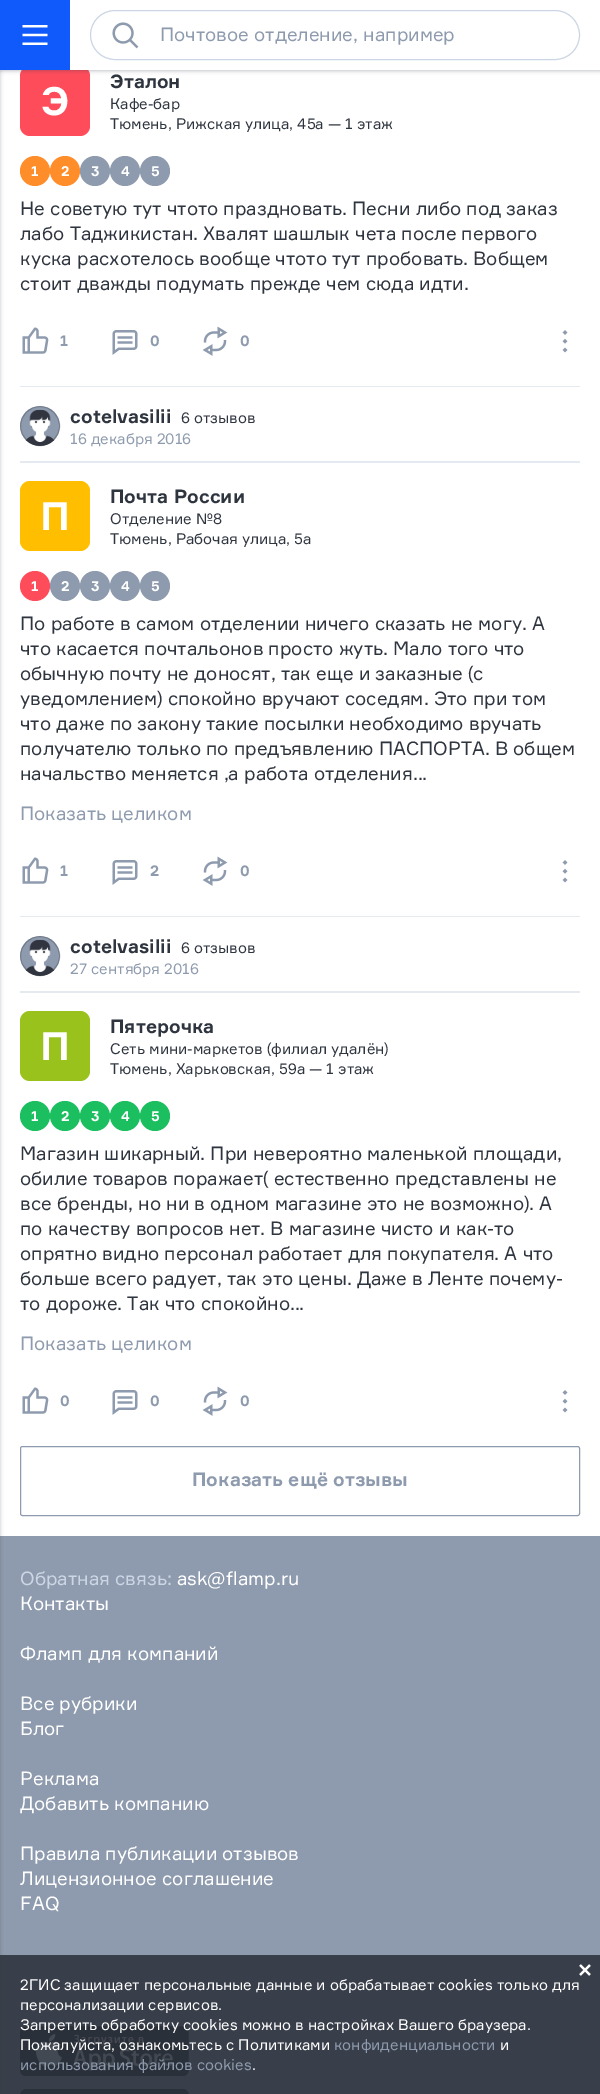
%!PS-Adobe-3.0
%%BoundingBox: 0 0 600 2094
%%LanguageLevel: 3
%%Pages: 1
%%EndComments
%%BeginProlog
/setink { 3 { 255 div 3 1 roll } repeat setrgbcolor } def
/usefont { [ exch dup neg 0 0 3 -1 roll 0 0 ] selectfont } def
/drawtext { setink usefont moveto show } def
/fillbox { setink rectfill } def
/setalpha { dup .setfillconstantalpha .setstrokeconstantalpha } def
/disc { newpath 0 360 arc closepath } def
/rrect { 5 dict begin { /r /h /w /y /x } { exch def } forall
  x r add y moveto x w add y 2 copy h add r arct x w add y h add x 1 index r arct
  x y h add x y r arct x y 2 copy exch w add exch r arct closepath end } def
/softshadow { 12 dict begin { /a /b /q /h /w /y /x } { exch def } forall gsave /was 0 def
  9 -2 -9 { dup b mul 4 div /e exch def 1 sub .425 mul 2.718 exch exp 1 add a .99 .min exch div /now exch def
    1 1 now sub 1 was sub div sub setalpha /was now def
    w h .min e 2 mul add 0 gt { x e sub y e sub w e 2 mul add h e 2 mul add
      q e add b .6 mul add w h .min 2 div e add .min 0 .max rrect fill } if } for grestore end } def
/drawimage { 5 dict begin { /h /w /y /x /name } { exch def } forall
  gsave x y translate w h scale
  w h 8 [w 0 0 h 0 0] name (r) file false 3 colorimage grestore end } def
%%EndProlog
%%BeginSetup
<< /PageSize [600 2094] /PageUsesTransparency true >> setpagedevice
%%EndSetup
%%Page: 1 1
0 .pushpdf14devicefilter
0 2094 translate 1 -1 scale
4 setmiterlimit
0 0 600 2094 255 255 255 fillbox
0 1536 600 558 142 154 173 fillbox
47 53 63 setink
-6 71 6 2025 0 2 0.3 softshadow
255 76 91 setink
20 66 70 70 10 rrect fill
47 53 63 setink
0 1 600 70 0 2 0.3 softshadow
0 0 70 70 16 89 250 fillbox
(assets/img1.rgb) 22 25 26 20 drawimage
70 0 530 70 255 255 255 fillbox
204 214 228 setink
90.5 10.5 489 49 24.5 rrect stroke
(assets/img2.rgb) 112 22 27 27 drawimage
(Почтовое отделение, например) 160 41 /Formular-Regular 18.75 142 154 173 drawtext
(Э) 41 115 /Formular-Bold 39 255 255 255 drawtext
(Эталон) 110 88 /Formular-Bold 18.75 47 53 63 drawtext
(Кафе-бар) 110 109 /Formular-Regular 15 47 53 63 drawtext
(Тюмень, Рижская улица, 45а — 1 этаж) 110 129 /Formular-Regular 15 47 53 63 drawtext
255 141 41 setink
35 171 15 disc fill
(1) 31 176 /Formular-Bold 14 255 255 255 drawtext
255 141 41 setink
65 171 15 disc fill
(2) 61 176 /Formular-Bold 14 255 255 255 drawtext
142 154 173 setink
95 171 15 disc fill
(3) 91 176 /Formular-Bold 14 255 255 255 drawtext
142 154 173 setink
125 171 15 disc fill
(4) 121 176 /Formular-Bold 14 255 255 255 drawtext
142 154 173 setink
155 171 15 disc fill
(5) 151 176 /Formular-Bold 14 255 255 255 drawtext
(Не советую тут чтото праздновать. Песни либо под заказ) 20 215 /Formular-Regular 18.75 47 53 63 drawtext
(лабо Таджикистан. Хвалят шашлык чета после первого) 20 240 /Formular-Regular 18.75 47 53 63 drawtext
(куска расхотелось вообще чтото тут пробовать. Вобщем) 20 265 /Formular-Regular 18.75 47 53 63 drawtext
(стоит дважды подумать прежде чем сюда идти.) 20 290 /Formular-Regular 18.75 47 53 63 drawtext
(assets/img3.rgb) 22 327 27 27 drawimage
(1) 60 346 /Formular-Bold 15 142 154 173 drawtext
(assets/img4.rgb) 112 330 26 25 drawimage
(0) 150 346 /Formular-Bold 15 142 154 173 drawtext
(assets/img5.rgb) 202 326 26 30 drawimage
(0) 240 346 /Formular-Bold 15 142 154 173 drawtext
(assets/img6.rgb) 562 330 6 23 drawimage
20 386 560 1 229 234 241 fillbox
20 461 560 2 229 234 241 fillbox
(assets/img7.rgb) 20 406 40 40 drawimage
0.3 setalpha
47 53 63 setink
40 426 19.5 disc stroke
1 setalpha
(cotelvasilii) 70 423 /Formular-Bold 18.75 47 53 63 drawtext
(6 отзывов) 181 423 /Formular-Regular 15 47 53 63 drawtext
(16 декабря 2016) 70 444 /Formular-Regular 15 142 154 173 drawtext
255 191 0 setink
20 481 70 70 10 rrect fill
(П) 40 530 /Formular-Bold 39 255 255 255 drawtext
(Почта России) 110 503 /Formular-Bold 18.75 47 53 63 drawtext
(Отделение №8) 110 524 /Formular-Regular 15 47 53 63 drawtext
(Тюмень, Рабочая улица, 5а) 110 544 /Formular-Regular 15 47 53 63 drawtext
255 76 91 setink
35 586 15 disc fill
(1) 31 591 /Formular-Bold 14 255 255 255 drawtext
142 154 173 setink
65 586 15 disc fill
(2) 61 591 /Formular-Bold 14 255 255 255 drawtext
142 154 173 setink
95 586 15 disc fill
(3) 91 591 /Formular-Bold 14 255 255 255 drawtext
142 154 173 setink
125 586 15 disc fill
(4) 121 591 /Formular-Bold 14 255 255 255 drawtext
142 154 173 setink
155 586 15 disc fill
(5) 151 591 /Formular-Bold 14 255 255 255 drawtext
(По работе в самом отделении ничего сказать не могу. А) 20 630 /Formular-Regular 18.75 47 53 63 drawtext
(что касается почтальонов просто жуть. Мало того что) 20 655 /Formular-Regular 18.75 47 53 63 drawtext
(обычную почту не доносят, так еще и заказные \(с) 20 680 /Formular-Regular 18.75 47 53 63 drawtext
(уведомлением\) спокойно вручают соседям. Это при том) 20 705 /Formular-Regular 18.75 47 53 63 drawtext
(что даже по закону такие посылки необходимо вручать) 20 730 /Formular-Regular 18.75 47 53 63 drawtext
(получателю только по предъявлению ПАСПОРТА. В общем) 20 755 /Formular-Regular 18.75 47 53 63 drawtext
(начальство меняется ,а работа отделения...) 20 780 /Formular-Regular 18.75 47 53 63 drawtext
(Показать целиком) 20 820 /Formular-Regular 18.75 142 154 173 drawtext
(assets/img3.rgb) 22 857 27 27 drawimage
(1) 60 876 /Formular-Bold 15 142 154 173 drawtext
(assets/img4.rgb) 112 860 26 25 drawimage
(2) 150 876 /Formular-Bold 15 142 154 173 drawtext
(assets/img5.rgb) 202 856 26 30 drawimage
(0) 240 876 /Formular-Bold 15 142 154 173 drawtext
(assets/img6.rgb) 562 860 6 23 drawimage
20 916 560 1 229 234 241 fillbox
20 991 560 2 229 234 241 fillbox
(assets/img7.rgb) 20 936 40 40 drawimage
0.3 setalpha
47 53 63 setink
40 956 19.5 disc stroke
1 setalpha
(cotelvasilii) 70 953 /Formular-Bold 18.75 47 53 63 drawtext
(6 отзывов) 181 953 /Formular-Regular 15 47 53 63 drawtext
(27 сентября 2016) 70 974 /Formular-Regular 15 142 154 173 drawtext
153 194 29 setink
20 1011 70 70 10 rrect fill
(П) 40 1060 /Formular-Bold 39 255 255 255 drawtext
(Пятерочка) 110 1033 /Formular-Bold 18.75 47 53 63 drawtext
(Сеть мини-маркетов) 110 1054 /Formular-Regular 15 47 53 63 drawtext
(\(филиал удалён\)) 267 1054 /Formular-Regular 15 47 53 63 drawtext
(Тюмень, Харьковская, 59а — 1 этаж) 110 1074 /Formular-Regular 15 47 53 63 drawtext
28 191 96 setink
35 1116 15 disc fill
(1) 31 1121 /Formular-Bold 14 255 255 255 drawtext
28 191 96 setink
65 1116 15 disc fill
(2) 61 1121 /Formular-Bold 14 255 255 255 drawtext
28 191 96 setink
95 1116 15 disc fill
(3) 91 1121 /Formular-Bold 14 255 255 255 drawtext
28 191 96 setink
125 1116 15 disc fill
(4) 121 1121 /Formular-Bold 14 255 255 255 drawtext
28 191 96 setink
155 1116 15 disc fill
(5) 151 1121 /Formular-Bold 14 255 255 255 drawtext
(Магазин шикарный. При невероятно маленькой площади,) 20 1160 /Formular-Regular 18.75 47 53 63 drawtext
(обилие товаров поражает\( естественно представлены не) 20 1185 /Formular-Regular 18.75 47 53 63 drawtext
(все бренды, но ни в одном магазине это не возможно\). А) 20 1210 /Formular-Regular 18.75 47 53 63 drawtext
(по качеству вопросов нет. В магазине чисто и как-то) 20 1235 /Formular-Regular 18.75 47 53 63 drawtext
(опрятно видно персонал работает для покупателя. А что) 20 1260 /Formular-Regular 18.75 47 53 63 drawtext
(больше всего радует, так это цены. Даже в Ленте почему-) 20 1285 /Formular-Regular 18.75 47 53 63 drawtext
(то дороже. Так что спокойно...) 20 1310 /Formular-Regular 18.75 47 53 63 drawtext
(Показать целиком) 20 1350 /Formular-Regular 18.75 142 154 173 drawtext
(assets/img3.rgb) 22 1387 27 27 drawimage
(0) 60 1406 /Formular-Bold 15 142 154 173 drawtext
(assets/img4.rgb) 112 1390 26 25 drawimage
(0) 150 1406 /Formular-Bold 15 142 154 173 drawtext
(assets/img5.rgb) 202 1386 26 30 drawimage
(0) 240 1406 /Formular-Bold 15 142 154 173 drawtext
(assets/img6.rgb) 562 1390 6 23 drawimage
20.5 1446.5 559 69 2 rrect stroke
(Показать ещё отзывы) 192 1486 /Formular-Bold 18.75 142 154 173 drawtext
(Обратная связь:) 20 1585 /Formular-Regular 18.75 204 214 228 drawtext
(ask@flamp.ru) 177 1585 /Formular-Regular 18.75 255 255 255 drawtext
(Контакты) 20 1610 /Formular-Regular 18.75 255 255 255 drawtext
(Фламп для компаний) 20 1660 /Formular-Regular 18.75 255 255 255 drawtext
(Все рубрики) 20 1710 /Formular-Regular 18.75 255 255 255 drawtext
(Блог) 20 1735 /Formular-Regular 18.75 255 255 255 drawtext
(Реклама) 20 1785 /Formular-Regular 18.75 255 255 255 drawtext
(Добавить компанию) 20 1810 /Formular-Regular 18.75 255 255 255 drawtext
(Правила публикации отзывов) 20 1860 /Formular-Regular 18.75 255 255 255 drawtext
(Лицензионное соглашение) 20 1885 /Formular-Regular 18.75 255 255 255 drawtext
(FAQ) 20 1910 /Formular-Regular 18.75 255 255 255 drawtext
(assets/img8.rgb) 20 2026 169 50 drawimage
(assets/img9.rgb) 20 2089 169 5 drawimage
0.9 setalpha
0 1955 600 139 47 53 63 fillbox
1 setalpha
(assets/img10.rgb) 579 1964 12 12 drawimage
(2ГИС защищает персональные данные и обрабатывает cookies только для) 20 1990 /Formular-Regular 15 255 255 255 drawtext
(персонализации сервисов.) 20 2010 /Formular-Regular 15 255 255 255 drawtext
(Запретить обработку cookies можно в настройках Вашего браузера.) 20 2030 /Formular-Regular 15 255 255 255 drawtext
(Пожалуйста, ознакомьтесь с Политиками) 20 2050 /Formular-Regular 15 255 255 255 drawtext
(конфиденциальности) 334 2050 /Formular-Regular 15 142 154 173 drawtext
(и) 500 2050 /Formular-Regular 15 255 255 255 drawtext
(использования файлов cookies) 20 2070 /Formular-Regular 15 142 154 173 drawtext
(.) 252 2070 /Formular-Regular 15 255 255 255 drawtext
.poppdf14devicefilter showpage
%%EOF
